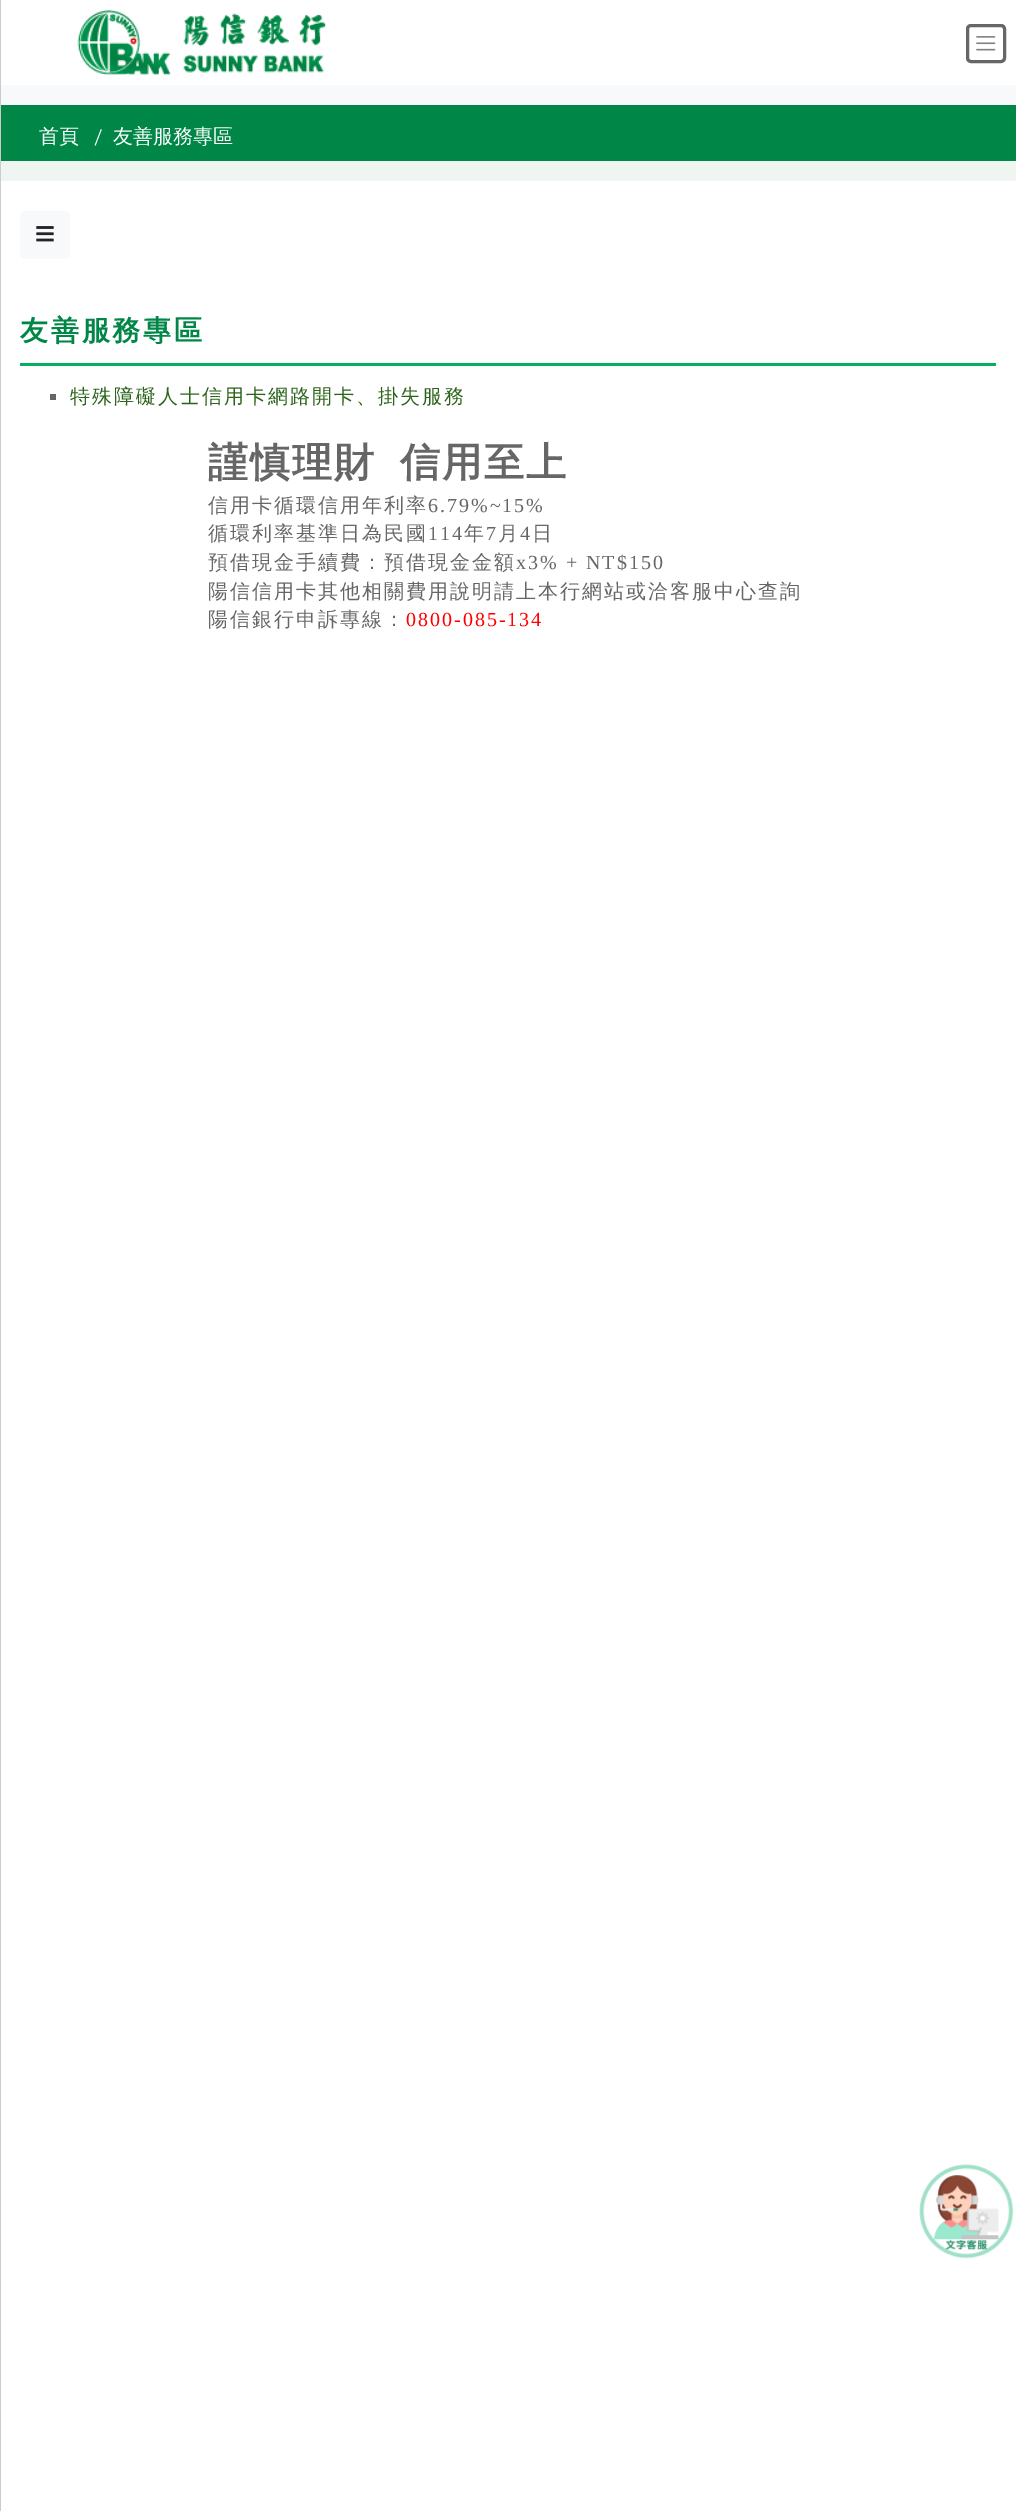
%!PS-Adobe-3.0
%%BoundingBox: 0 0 1016 2511
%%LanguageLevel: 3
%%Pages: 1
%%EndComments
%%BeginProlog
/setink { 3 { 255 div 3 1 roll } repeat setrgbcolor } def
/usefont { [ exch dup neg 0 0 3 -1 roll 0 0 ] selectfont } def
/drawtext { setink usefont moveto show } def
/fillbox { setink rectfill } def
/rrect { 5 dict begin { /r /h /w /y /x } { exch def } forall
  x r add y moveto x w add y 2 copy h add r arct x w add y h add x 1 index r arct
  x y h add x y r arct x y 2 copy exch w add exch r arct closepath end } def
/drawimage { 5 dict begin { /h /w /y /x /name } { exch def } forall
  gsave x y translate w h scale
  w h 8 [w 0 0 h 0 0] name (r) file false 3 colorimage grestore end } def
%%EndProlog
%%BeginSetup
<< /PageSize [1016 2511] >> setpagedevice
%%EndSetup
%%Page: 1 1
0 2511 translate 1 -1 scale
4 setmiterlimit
0 0 1016 2511 239 245 241 fillbox
1 0 1015 85 255 255 255 fillbox
(assets/img1.rgb) 77 10 250 65 drawimage
1 85 1015 20 248 249 250 fillbox
0 105 1016 6 0 134 71 fillbox
102 102 102 setink
3 setlinewidth
967.5 25.5 37 36 3.5 rrect stroke
(assets/img2.rgb) 976 36 20 15 drawimage
1 111 1015 50 0 134 71 fillbox
(首頁) 39 143 /WenQuanYiZenHei-Medium 20 255 255 255 drawtext
(/) 93 143 /Caladea-Regular 20 255 255 255 drawtext
(友善服務專區) 113 143 /WenQuanYiZenHei-Medium 20 255 255 255 drawtext
1 181 1015 2330 255 255 255 fillbox
0 0 1 2511 204 204 204 fillbox
248 249 250 setink
20 211 50 48 5 rrect fill
(assets/img3.rgb) 36 226 18 16 drawimage
20 363 976 3 3 176 95 fillbox
/WenQuanYiZenHei-Bold 28 usefont
0 134 71 setink
20 340 moveto 2.75 0 (友善服務專區) ashow
50 394 6 6 102 102 102 fillbox
/WenQuanYiZenHei-Medium 20 usefont
43 100 25 setink
70 403 moveto 2 0 (特殊障礙人士信用卡網路開卡、掛失服務) ashow
/WenQuanYiZenHei-Bold 40 usefont
102 102 102 setink
208 476 moveto 2 0 (謹慎理財) ashow
400 476 moveto 2 0 (信用至上) ashow
/WenQuanYiZenHei-Medium 20 usefont
208 512 moveto 2 0 (信用卡循環信用年利率) ashow
/LiberationSerif-Regular 20 usefont
428 512 moveto 2 0 (6.79%~15%) ashow
/WenQuanYiZenHei-Medium 20 usefont
208 540 moveto 2 0 (循環利率基準日為民國) ashow
/LiberationSerif-Regular 20 usefont
428 540 moveto 2 0 (114) ashow
/WenQuanYiZenHei-Medium 20 usefont
464 540 moveto 2 0 (年) ashow
/LiberationSerif-Regular 20 usefont
486 540 moveto 2 0 (7) ashow
/WenQuanYiZenHei-Medium 20 usefont
498 540 moveto 2 0 (月) ashow
/LiberationSerif-Regular 20 usefont
520 540 moveto 2 0 (4) ashow
/WenQuanYiZenHei-Medium 20 usefont
532 540 moveto 2 0 (日) ashow
208 569 moveto 2 0 (預借現金手續費：預借現金金額) ashow
/LiberationSerif-Regular 20 usefont
516 569 moveto 2 0 (x3% + NT$150) ashow
/WenQuanYiZenHei-Medium 20 usefont
208 598 moveto 2 0 (陽信信用卡其他相關費用說明請上本行網站或洽客服中心查詢) ashow
208 626 moveto 2 0 (陽信銀行申訴專線：) ashow
/LiberationSerif-Regular 20 usefont
255 0 0 setink
406 626 moveto 2 0 (0800-085-134) ashow
(assets/img4.rgb) 919 2164 95 95 drawimage
showpage
%%EOF
